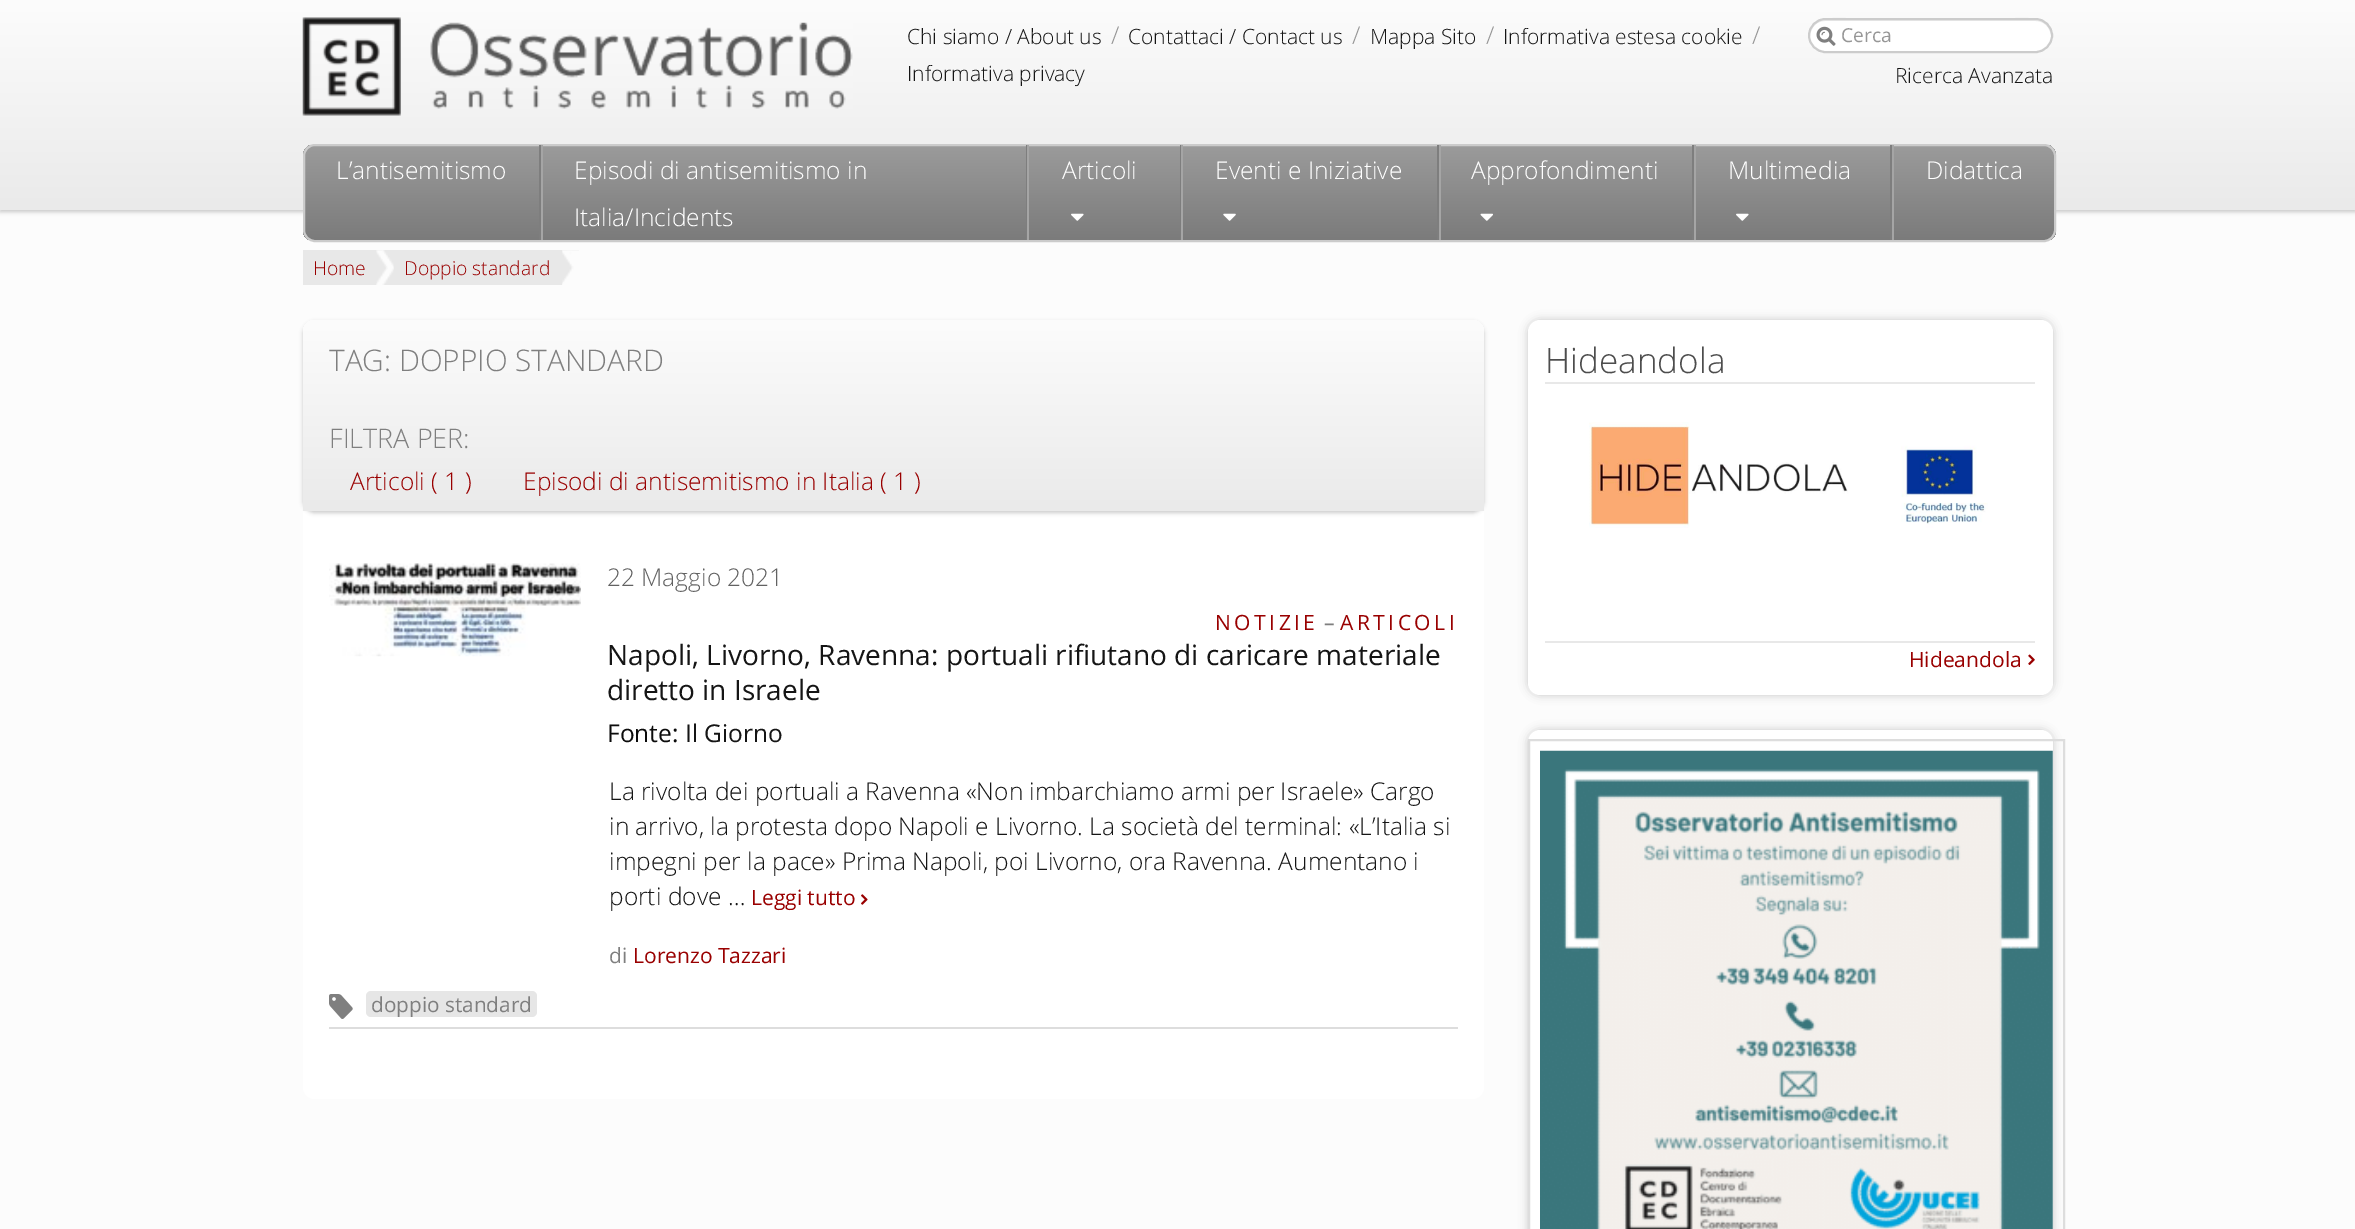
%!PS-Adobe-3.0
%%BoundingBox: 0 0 2355 1229
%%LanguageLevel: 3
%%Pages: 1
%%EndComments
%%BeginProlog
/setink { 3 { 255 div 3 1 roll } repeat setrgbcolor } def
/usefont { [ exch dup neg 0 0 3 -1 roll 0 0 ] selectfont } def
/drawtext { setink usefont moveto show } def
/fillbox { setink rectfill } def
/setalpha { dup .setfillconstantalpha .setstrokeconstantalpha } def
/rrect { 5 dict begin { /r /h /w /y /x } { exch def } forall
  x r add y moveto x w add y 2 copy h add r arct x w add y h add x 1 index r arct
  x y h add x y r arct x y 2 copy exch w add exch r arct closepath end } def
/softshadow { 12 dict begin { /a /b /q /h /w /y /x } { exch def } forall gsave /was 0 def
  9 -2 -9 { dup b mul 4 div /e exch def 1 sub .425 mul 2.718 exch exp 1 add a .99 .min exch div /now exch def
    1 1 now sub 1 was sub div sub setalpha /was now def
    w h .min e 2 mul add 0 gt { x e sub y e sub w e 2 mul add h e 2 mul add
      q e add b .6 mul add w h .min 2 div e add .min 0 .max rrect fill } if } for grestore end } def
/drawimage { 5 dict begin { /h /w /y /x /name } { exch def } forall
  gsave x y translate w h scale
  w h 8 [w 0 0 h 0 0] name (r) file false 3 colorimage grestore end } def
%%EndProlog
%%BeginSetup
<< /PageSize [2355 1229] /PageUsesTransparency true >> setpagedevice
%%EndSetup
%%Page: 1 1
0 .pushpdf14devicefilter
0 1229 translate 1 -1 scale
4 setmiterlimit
0 0 2355 1229 252 252 252 fillbox
0 0 0 setink
0 2 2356 210 0 2 0.2 softshadow
gsave 0 0 moveto 2355 0 lineto 2355 210 lineto 0 210 lineto closepath clip newpath
<< /ShadingType 2 /ColorSpace /DeviceRGB /Coords [1178 0 1178 210] /Extend [true true] /Function << /FunctionType 2 /Domain [0 1] /C0 [0.988 0.988 0.988] /C1 [0.918 0.918 0.918] /N 1 >> >> shfill grestore
(assets/img1.rgb) 302 17 99 99 drawimage
(assets/img2.rgb) 430 22 423 87 drawimage
(Chi siamo / About us) 907 44 /OpenSans-Light 21 21 21 21 drawtext
(/) 1111 44 /OpenSans-Light 24.5 151 151 151 drawtext
(Contattaci / Contact us) 1128 44 /OpenSans-Light 21 21 21 21 drawtext
(/) 1352 44 /OpenSans-Light 24.5 151 151 151 drawtext
(Mappa Sito) 1370 44 /OpenSans-Light 21 21 21 21 drawtext
(/) 1486 44 /OpenSans-Light 24.5 151 151 151 drawtext
(Informativa estesa cookie) 1503 44 /OpenSans-Light 21 21 21 21 drawtext
(/) 1752 44 /OpenSans-Light 24.5 151 151 151 drawtext
(Informativa privacy) 907 81 /OpenSans-Light 21 21 21 21 drawtext
255 255 255 setink
1808 18 245 35 17.5 rrect fill
236 236 236 setink
1825 21 moveto 2035 21 lineto 2044 21 2050 27 2051 36 curveto 2053 11 2011 19 2000 19 curveto 1861 19 lineto 1850 19 1808 11 1810 36 curveto 1811 27 1817 21 1825 21 curveto closepath fill
204 204 204 setink
2 setlinewidth
1809 19 243 33 16.5 rrect stroke
(assets/img3.rgb) 1816 26 20 20 drawimage
(Cerca) 1841 42 /OpenSans-Regular 19.25 151 151 151 drawtext
(Ricerca Avanzata) 1895 83 /OpenSans-Light 21 21 21 21 drawtext
gsave
303 144 1753 98 12 rrect clip newpath
gsave 303 145 moveto 2056 145 lineto 2056 240 lineto 303 240 lineto closepath clip newpath
<< /ShadingType 2 /ColorSpace /DeviceRGB /Coords [1180 145 1180 240] /Extend [true true] /Function << /FunctionType 2 /Domain [0 1] /C0 [0.608 0.608 0.608] /C1 [0.482 0.482 0.482] /N 1 >> >> shfill grestore
grestore
203 203 203 setink
304 145 1751 96 11 rrect stroke
539 145 2 95 126 126 126 fillbox
(L’antisemitismo) 336 179 /OpenSans-Light 24.5 255 255 255 drawtext
1026 145 1 95 126 126 126 fillbox
541 145 2 95 165 165 165 fillbox
(Episodi di antisemitismo in) 574 179 /OpenSans-Light 24.5 255 255 255 drawtext
(Italia/Incidents) 574 226 /OpenSans-Light 24.5 255 255 255 drawtext
1180 145 1 95 126 126 126 fillbox
1027 145 2 95 165 165 165 fillbox
(Articoli) 1062 179 /OpenSans-Light 24.5 255 255 255 drawtext
(assets/img4.rgb) 1071 213 13 8 drawimage
1437 145 2 95 126 126 126 fillbox
1181 145 2 95 165 165 165 fillbox
(Eventi e Iniziative) 1215 179 /OpenSans-Light 24.5 255 255 255 drawtext
(assets/img5.rgb) 1223 213 13 8 drawimage
1692 145 2 95 126 126 126 fillbox
1439 145 2 95 165 165 165 fillbox
(Approfondimenti) 1471 179 /OpenSans-Light 24.5 255 255 255 drawtext
(assets/img6.rgb) 1480 213 13 8 drawimage
1890 145 2 95 126 126 126 fillbox
1694 145 2 95 165 165 165 fillbox
(Multimedia) 1728 179 /OpenSans-Light 24.5 255 255 255 drawtext
(assets/img4.rgb) 1736 213 13 8 drawimage
1892 145 2 95 165 165 165 fillbox
(Didattica) 1926 179 /OpenSans-Light 24.5 255 255 255 drawtext
303 250 276 35 232 232 232 fillbox
(Home) 313 275 /OpenSans-Light 19.25 153 0 0 drawtext
(assets/img7.rgb) 376 250 18 35 drawimage
(Doppio standard) 404 275 /OpenSans-Light 19.25 153 0 0 drawtext
(assets/img8.rgb) 562 250 17 35 drawimage
255 255 255 setink
303 320 1181 779 12 rrect fill
0 0 0 setink
303 322 1181 191 12 2 0.2 softshadow
gsave 315 320 moveto 1472 320 lineto 1478.5 320 1484 325.5 1484 332 curveto 1484 511 lineto 303 511 lineto 303 332 lineto 303 325.5 308.5 320 315 320 curveto closepath clip newpath
<< /ShadingType 2 /ColorSpace /DeviceRGB /Coords [893 320 893 511] /Extend [true true] /Function << /FunctionType 2 /Domain [0 1] /C0 [0.988 0.988 0.988] /C1 [0.918 0.918 0.918] /N 1 >> >> shfill grestore
(TAG: DOPPIO STANDARD) 329 371 /OpenSans-Light 29.75 127 127 127 drawtext
(FILTRA PER:) 329 448 /OpenSans-Light 27 127 127 127 drawtext
(Articoli \( 1 \)) 350 490 /OpenSans-Light 24.5 153 0 0 drawtext
(Episodi di antisemitismo in Italia \( 1 \)) 523 490 /OpenSans-Light 24.5 153 0 0 drawtext
329 1027 1129 2 221 221 221 fillbox
(assets/img9.rgb) 329 563 252 94 drawimage
(22 Maggio 2021) 607 586 /OpenSans-Light 24.5 98 98 98 drawtext
/OpenSans-Regular 21 usefont
153 0 0 setink
1215 630 moveto 3.5 0 (NOTIZIE) ashow
(–) 1324 630 /OpenSans-Regular 21 127 127 127 drawtext
153 0 0 setink
1340 630 moveto 3.5 0 (ARTICOLI) ashow
(Napoli, Livorno, Ravenna: portuali rifiutano di caricare materiale) 607 665 /OpenSans-Regular 28 21 21 21 drawtext
(diretto in Israele) 607 700 /OpenSans-Regular 28 21 21 21 drawtext
(Fonte:) 607 742 /OpenSans-Regular 24.5 12 12 12 drawtext
(Il Giorno) 685 742 /OpenSans-Regular 24.5 21 21 21 drawtext
(La rivolta dei portuali a Ravenna «Non imbarchiamo armi per Israele» Cargo) 609 800 /OpenSans-Light 24.5 21 21 21 drawtext
(in arrivo, la protesta dopo Napoli e Livorno. La società del terminal: «L’Italia si) 609 835 /OpenSans-Light 24.5 21 21 21 drawtext
(impegni per la pace» Prima Napoli, poi Livorno, ora Ravenna. Aumentano i) 609 870 /OpenSans-Light 24.5 21 21 21 drawtext
(porti dove …) 609 905 /OpenSans-Light 24.5 21 21 21 drawtext
(Leggi tutto) 751 905 /OpenSans-Regular 21 153 0 0 drawtext
(assets/img10.rgb) 861 894 7 11 drawimage
(di) 609 963 /OpenSans-Regular 21 127 127 127 drawtext
(Lorenzo Tazzari) 633 963 /OpenSans-Regular 21 153 0 0 drawtext
(assets/img11.rgb) 329 994 24 25 drawimage
230 230 230 setink
366 991 171 26 5 rrect fill
(doppio standard) 371 1012 /OpenSans-Regular 20.75 127 127 127 drawtext
0 0 0 setink
1528 320 525 375 12 4.5 0.2 softshadow
255 255 255 setink
1528 320 525 375 12 rrect fill
(Hideandola) 1545 373 /OpenSans-Light 35 77 77 77 drawtext
1545 382 490 2 232 232 232 fillbox
(assets/img12.rgb) 1589 422 399 106 drawimage
1545 641 490 2 232 232 232 fillbox
(Hideandola) 1909 667 /OpenSans-Regular 21 153 0 0 drawtext
(assets/img13.rgb) 2028 654 7 11 drawimage
0 0 0 setink
1528 730 525 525 12 4.5 0.2 softshadow
255 255 255 setink
1528 730 525 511 12 rrect fill
221 221 221 setink
1529 740 535 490 rectstroke
(assets/img14.rgb) 1540 750 513 479 drawimage
.poppdf14devicefilter showpage
%%EOF
